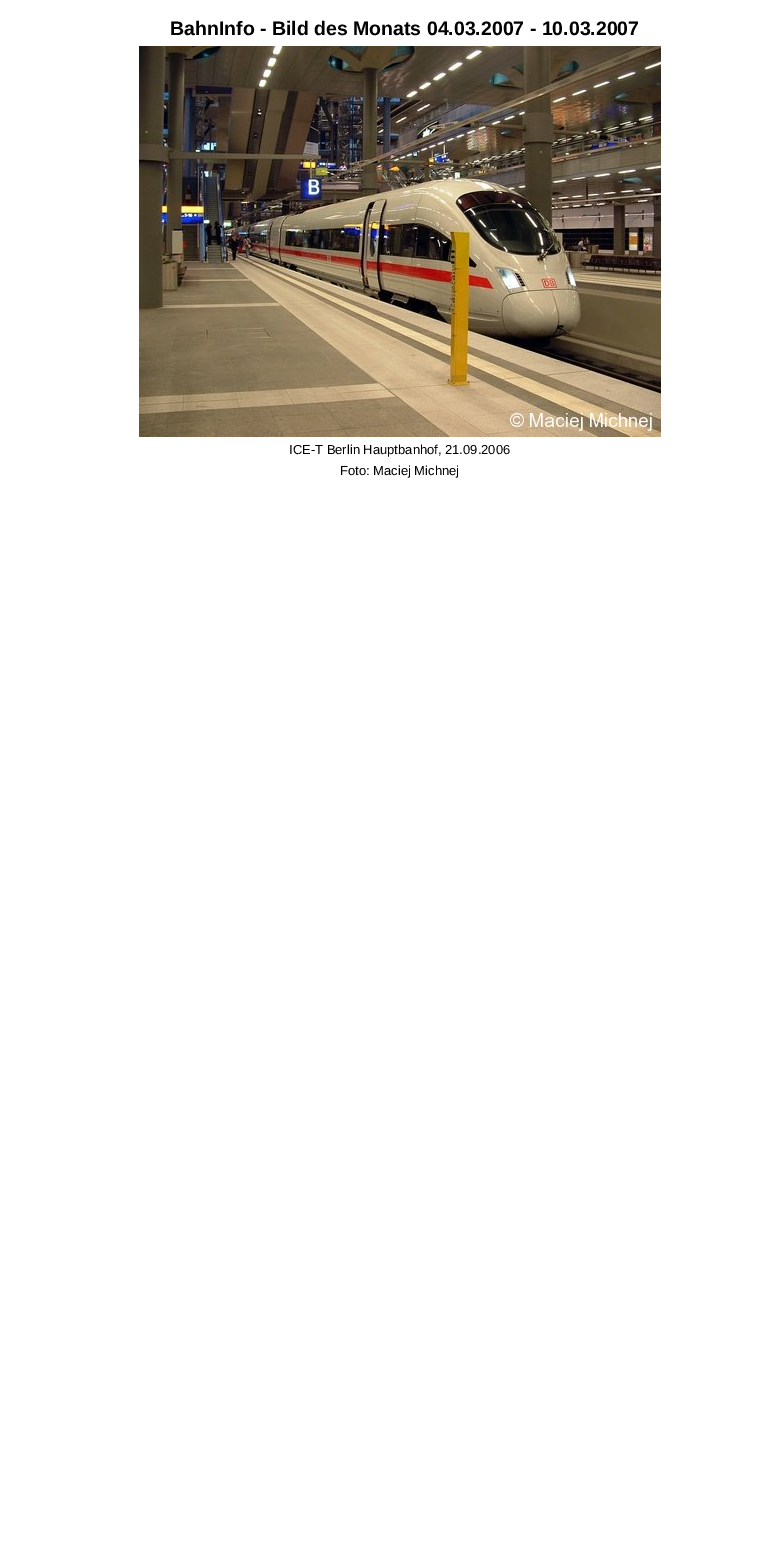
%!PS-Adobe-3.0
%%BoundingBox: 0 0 777 1561
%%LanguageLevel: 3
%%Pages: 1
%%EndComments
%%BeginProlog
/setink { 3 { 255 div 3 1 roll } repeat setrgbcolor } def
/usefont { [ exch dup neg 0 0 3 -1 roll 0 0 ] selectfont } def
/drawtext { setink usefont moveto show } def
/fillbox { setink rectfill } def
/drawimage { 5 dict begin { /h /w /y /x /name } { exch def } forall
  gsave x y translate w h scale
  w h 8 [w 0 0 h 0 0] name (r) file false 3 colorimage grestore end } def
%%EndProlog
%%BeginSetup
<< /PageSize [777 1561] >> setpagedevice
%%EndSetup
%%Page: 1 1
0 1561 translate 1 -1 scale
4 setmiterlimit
0 0 777 1561 255 255 255 fillbox
(BahnInfo - Bild des Monats 04.03.2007 - 10.03.2007) 170 35 /LiberationSans-Bold 19.5 0 0 0 drawtext
(assets/img1.rgb) 139 46 522 391 drawimage
(ICE-T Berlin Hauptbanhof, 21.09.2006) 289 454 /LiberationSans-Regular 13 0 0 0 drawtext
(Foto: Maciej Michnej) 340 475 /LiberationSans-Regular 13 0 0 0 drawtext
showpage
%%EOF
